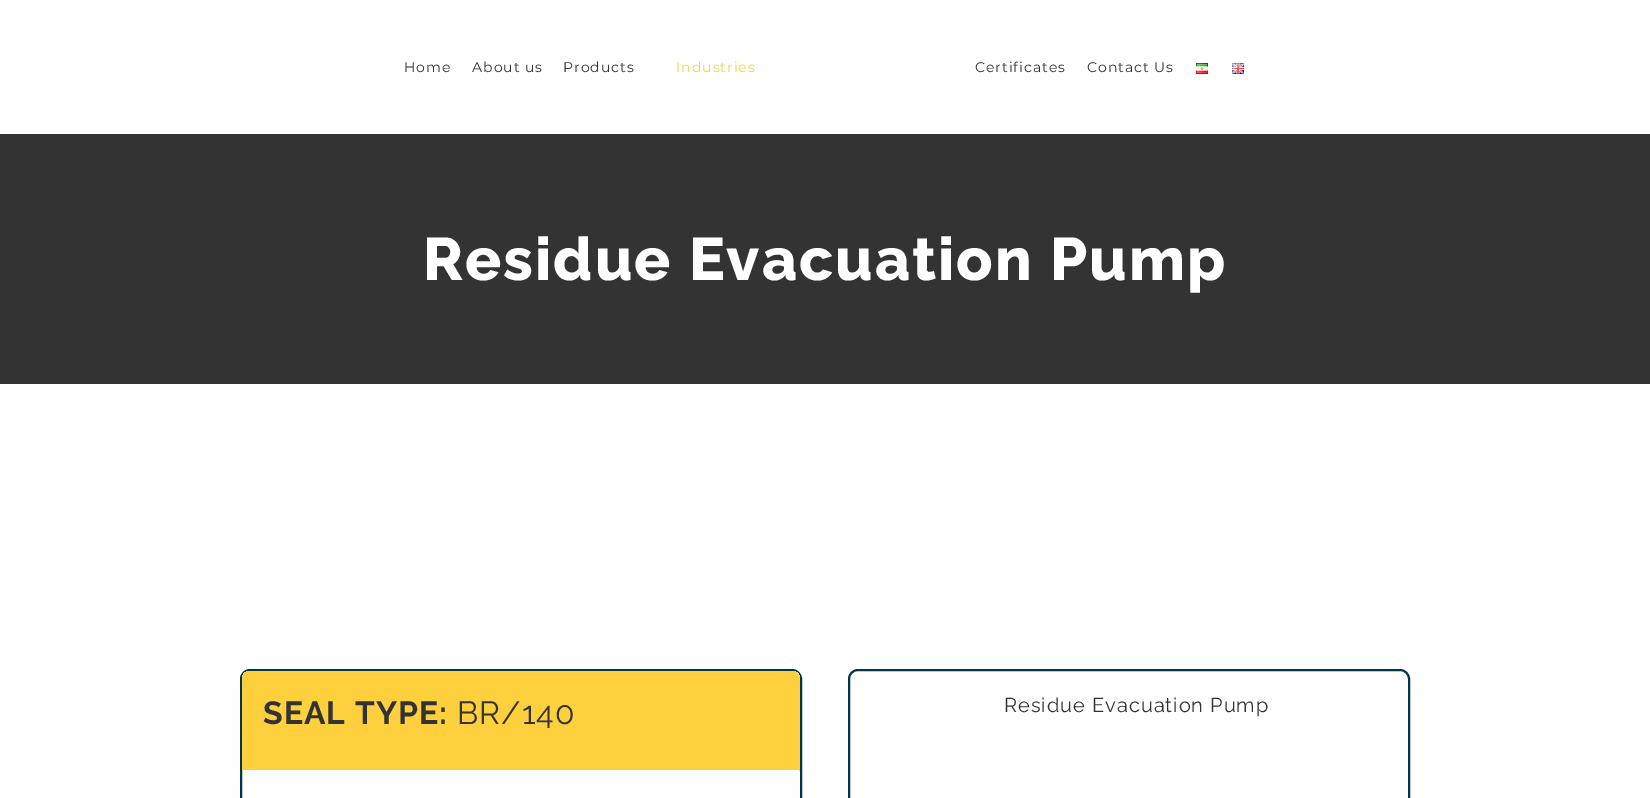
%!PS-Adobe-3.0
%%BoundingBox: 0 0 1650 798
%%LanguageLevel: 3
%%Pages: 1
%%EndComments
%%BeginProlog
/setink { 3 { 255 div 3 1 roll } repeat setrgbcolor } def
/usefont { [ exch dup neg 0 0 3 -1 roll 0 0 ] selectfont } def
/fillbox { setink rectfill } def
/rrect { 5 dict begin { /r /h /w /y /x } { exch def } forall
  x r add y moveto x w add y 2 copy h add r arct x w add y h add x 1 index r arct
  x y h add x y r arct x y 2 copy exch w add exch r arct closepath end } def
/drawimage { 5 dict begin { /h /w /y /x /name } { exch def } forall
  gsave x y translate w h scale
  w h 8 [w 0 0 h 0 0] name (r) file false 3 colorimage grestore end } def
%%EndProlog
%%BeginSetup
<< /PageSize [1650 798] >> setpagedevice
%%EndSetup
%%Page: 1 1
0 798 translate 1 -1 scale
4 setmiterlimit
0 0 1650 798 255 255 255 fillbox
/Montserrat-Thin 14 usefont
51 51 51 setink
404 72 moveto 1 0 (Home) ashow
472 72 moveto 1 0 (About us) ashow
563 72 moveto 1 0 (Products) ashow
254 208 61 setink
676 72 moveto 1 0 (Industries) ashow
51 51 51 setink
975 72 moveto 1 0 (Certificates) ashow
1087 72 moveto 1 0 (Contact Us) ashow
(assets/img1.rgb) 1196 63 12 11 drawimage
(assets/img2.rgb) 1232 63 12 11 drawimage
0 134 1650 250 51 51 51 fillbox
/Raleway-ExtraBold 60 usefont
255 255 255 setink
423 280 moveto 2 0 (Residue Evacuation Pump) ashow
0 55 75 setink
2 setlinewidth
241 670 560 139 9 rrect stroke
gsave
242 671 558 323 8 rrect clip newpath
243 672 556 98 254 208 61 fillbox
242 671 558 1 254 208 61 fillbox
799 671 1 100 254 208 61 fillbox
grestore
242 770 1 1 254 208 61 fillbox
gsave
242 671 558 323 8 rrect clip newpath
242 671 1 100 254 208 61 fillbox
grestore
/Raleway-Bold 32 usefont
51 51 51 setink
263 724 moveto 1 0 (SEAL TYPE:) ashow
/Raleway-Regular 32 usefont
457 724 moveto 1 0 (BR/140) ashow
0 55 75 setink
849 670 560 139 9 rrect stroke
/Raleway-Regular 20 usefont
51 51 51 setink
1004 712 moveto 1 0 (Residue Evacuation Pump) ashow
showpage
%%EOF
